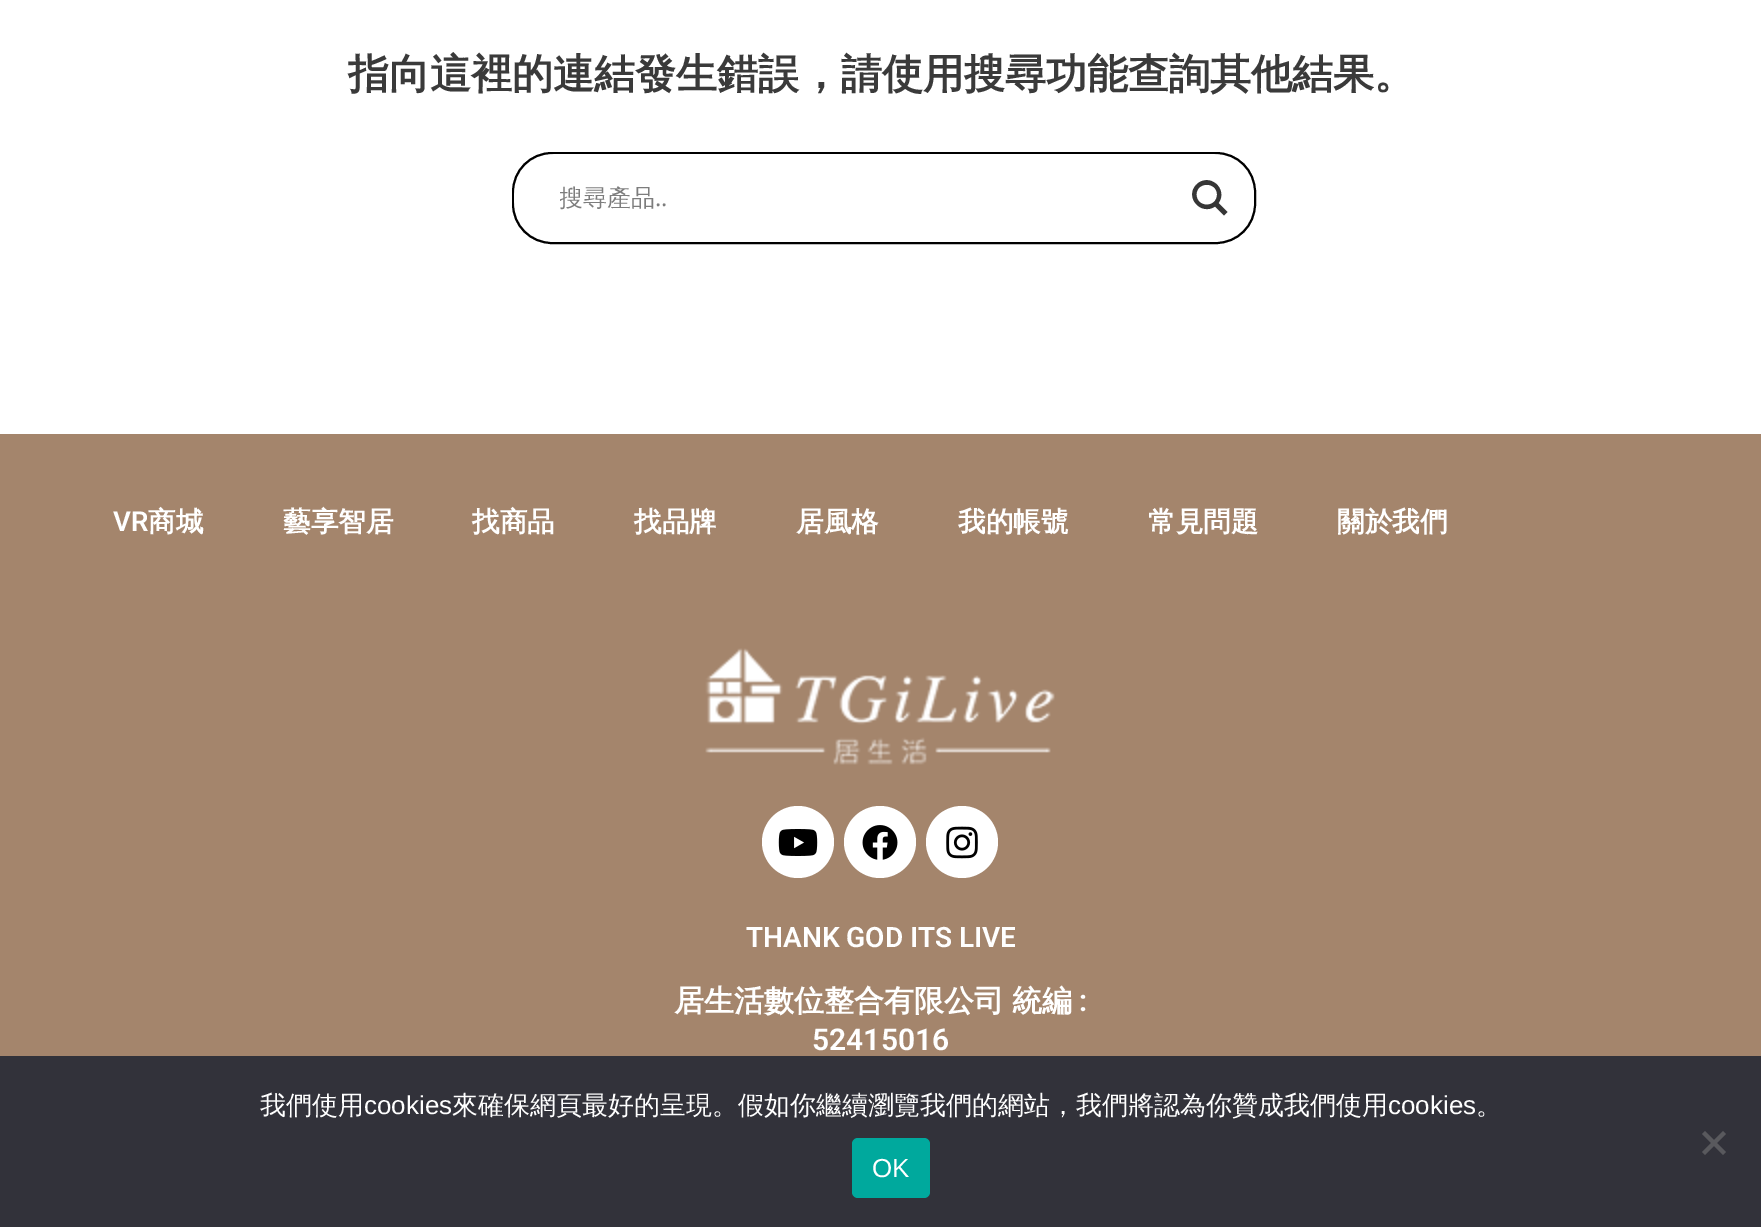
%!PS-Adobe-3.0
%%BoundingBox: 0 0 1761 1227
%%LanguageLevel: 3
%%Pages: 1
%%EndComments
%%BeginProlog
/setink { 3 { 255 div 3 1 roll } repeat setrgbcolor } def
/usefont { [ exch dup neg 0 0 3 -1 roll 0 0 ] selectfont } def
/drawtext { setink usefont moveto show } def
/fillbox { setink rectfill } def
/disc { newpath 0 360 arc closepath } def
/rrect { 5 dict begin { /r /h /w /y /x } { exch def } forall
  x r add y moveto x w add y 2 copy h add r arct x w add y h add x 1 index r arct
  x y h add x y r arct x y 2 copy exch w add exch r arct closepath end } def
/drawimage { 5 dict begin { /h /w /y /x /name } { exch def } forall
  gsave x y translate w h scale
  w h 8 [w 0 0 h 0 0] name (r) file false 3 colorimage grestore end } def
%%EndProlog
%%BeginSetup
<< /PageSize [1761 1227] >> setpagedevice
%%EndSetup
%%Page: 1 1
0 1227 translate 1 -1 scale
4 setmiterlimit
0 0 1761 1227 255 255 255 fillbox
(指向這裡的連結發生錯誤，請使用搜尋功能查詢其他結果。) 348 88 /WenQuanYiZenHei-Bold 41.05 58 58 58 drawtext
0 0 0 setink
2 setlinewidth
513 153 742 90 39 rrect stroke
255 255 255 setink
514 154 740 88 44 rrect fill
gsave
560 180 612 36 rectclip
(搜尋產品) 559 206 /WenQuanYiZenHei-Medium 24 125 125 125 drawtext
grestore
(..) 655 206 /OpenSans-Regular 24 125 125 125 drawtext
54 54 54 setink
1227.5 212 moveto 1218.5 203 lineto 1228.5 189 1209.5 172 1196.5 184.5 curveto 1184 197 1201 216 1215 206.5 curveto 1224 215.5 lineto closepath 1196.5 194.5 moveto 1196.5 181.5 1217 181.5 1217 194.5 curveto 1217 208 1196.5 208 1196.5 194.5 curveto closepath fill
0 434 1761 622 164 133 108 fillbox
(VR) 113 531 /Roboto-SemiBold 27.5 255 255 255 drawtext
(商城) 148 531 /WenQuanYiZenHei-Bold 27.5 255 255 255 drawtext
(藝享智居) 283 531 /WenQuanYiZenHei-Bold 27.5 255 255 255 drawtext
(找商品) 472 531 /WenQuanYiZenHei-Bold 27.5 255 255 255 drawtext
(找品牌) 634 531 /WenQuanYiZenHei-Bold 27.5 255 255 255 drawtext
(居風格) 796 531 /WenQuanYiZenHei-Bold 27.5 255 255 255 drawtext
(我的帳號) 958 531 /WenQuanYiZenHei-Bold 27.5 255 255 255 drawtext
(常見問題) 1148 531 /WenQuanYiZenHei-Bold 27.5 255 255 255 drawtext
(關於我們) 1337 531 /WenQuanYiZenHei-Bold 27.5 255 255 255 drawtext
(assets/img1.rgb) 705 648 350 117 drawimage
798 842 36 disc fill
(assets/img2.rgb) 778 829 40 27 drawimage
880 842 36 disc fill
(assets/img3.rgb) 862 825 36 35 drawimage
962 842 36 disc fill
(assets/img4.rgb) 946 826 32 33 drawimage
(THANK GOD ITS LIVE) 746 947 /Roboto-SemiBold 28 255 255 255 drawtext
(居生活數位整合有限公司) 674 1011 /WenQuanYiZenHei-Bold 30 255 255 255 drawtext
(統編) 1012 1011 /WenQuanYiZenHei-Bold 30 255 255 255 drawtext
(:) 1079 1011 /Roboto-SemiBold 30 255 255 255 drawtext
(52415016) 812 1050 /Roboto-SemiBold 30 255 255 255 drawtext
0 1056 1761 171 50 50 58 fillbox
(我們使用) 260 1114 /WenQuanYiZenHei-Medium 26 255 255 255 drawtext
(cookies) 364 1114 /LiberationSans-Regular 26 255 255 255 drawtext
(來確保網頁最好的呈現。假如你繼續瀏覽我們的網站，我們將認為你贊成我們使用) 452 1114 /WenQuanYiZenHei-Medium 26 255 255 255 drawtext
(cookies) 1388 1114 /LiberationSans-Regular 26 255 255 255 drawtext
(。) 1476 1114 /WenQuanYiZenHei-Medium 26 255 255 255 drawtext
89 89 93 setink
1723 1131 moveto 1726 1134 lineto 1705 1155 lineto 1702 1152 lineto closepath fill
1702 1134 moveto 1705 1131 lineto 1726 1152 lineto 1723 1155 lineto closepath fill
0 169 157 setink
852 1138 78 60 6 rrect fill
(OK) 872 1177 /LiberationSans-Regular 26 255 255 255 drawtext
showpage
%%EOF
